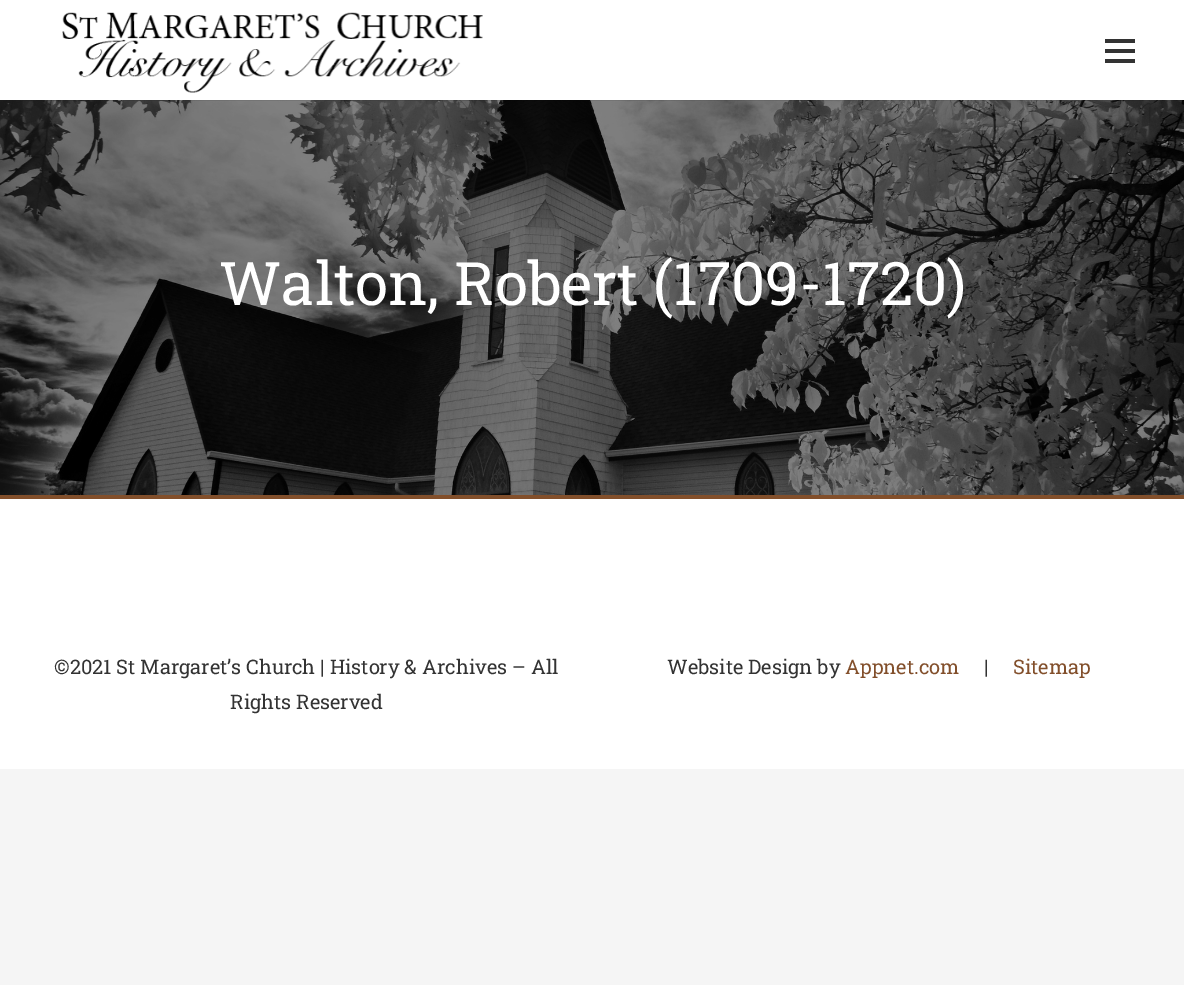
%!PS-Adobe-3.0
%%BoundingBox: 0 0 1184 985
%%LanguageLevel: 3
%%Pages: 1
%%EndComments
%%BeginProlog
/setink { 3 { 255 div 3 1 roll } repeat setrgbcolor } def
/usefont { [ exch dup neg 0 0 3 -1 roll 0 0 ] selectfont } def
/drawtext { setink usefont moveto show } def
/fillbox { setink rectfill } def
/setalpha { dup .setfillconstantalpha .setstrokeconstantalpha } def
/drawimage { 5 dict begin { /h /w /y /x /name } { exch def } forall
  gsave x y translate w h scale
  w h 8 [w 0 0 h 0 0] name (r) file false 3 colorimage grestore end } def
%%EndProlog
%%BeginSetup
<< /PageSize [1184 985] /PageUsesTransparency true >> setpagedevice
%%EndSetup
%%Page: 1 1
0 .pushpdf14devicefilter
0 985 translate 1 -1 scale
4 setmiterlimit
0 0 1184 985 245 245 245 fillbox
0 499 1184 270 255 255 255 fillbox
(assets/img2.rgb) 0 100 1184 395 drawimage
0.08 setalpha
23 100 1161 1 0 0 0 fillbox
1 setalpha
0 0 1184 100 255 255 255 fillbox
(assets/img1.rgb) 62 12 421 81 drawimage
1105 49 30 4 51 51 51 fillbox
1105 39 30 4 51 51 51 fillbox
1105 59 30 4 51 51 51 fillbox
0 495 1184 4 130 79 43 fillbox
(Walton, Robert \(1709-1720\)) 219 305 /RobotoSlab-Regular 60 255 255 255 drawtext
(©2021 St Margaret’s Church | History & Archives – All) 54 674 /RobotoSlab-Regular 20 51 51 51 drawtext
(Rights Reserved) 230 709 /RobotoSlab-Regular 20 51 51 51 drawtext
(Website Design by) 667 674 /RobotoSlab-Regular 20 51 51 51 drawtext
(Appnet.com) 845 674 /RobotoSlab-Regular 20 130 79 43 drawtext
(|) 984 674 /RobotoSlab-Regular 20 51 51 51 drawtext
(Sitemap) 1013 674 /RobotoSlab-Regular 20 130 79 43 drawtext
.poppdf14devicefilter showpage
%%EOF
